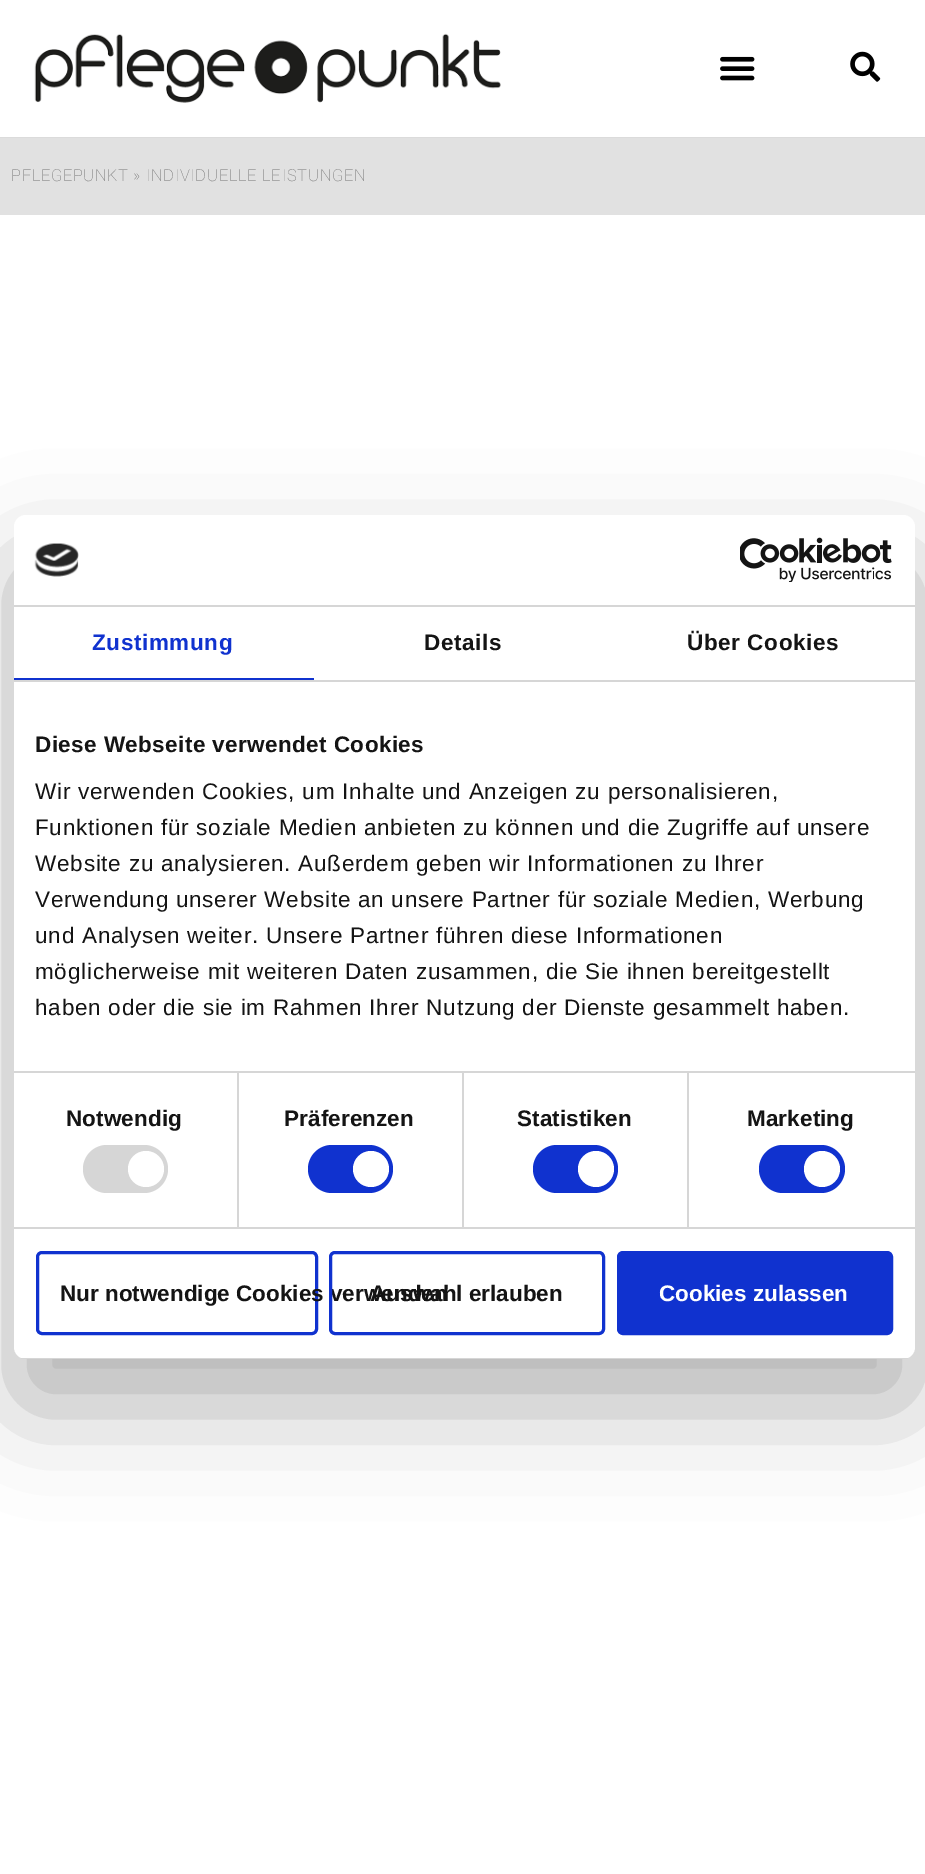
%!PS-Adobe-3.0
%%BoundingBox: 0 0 925 1874
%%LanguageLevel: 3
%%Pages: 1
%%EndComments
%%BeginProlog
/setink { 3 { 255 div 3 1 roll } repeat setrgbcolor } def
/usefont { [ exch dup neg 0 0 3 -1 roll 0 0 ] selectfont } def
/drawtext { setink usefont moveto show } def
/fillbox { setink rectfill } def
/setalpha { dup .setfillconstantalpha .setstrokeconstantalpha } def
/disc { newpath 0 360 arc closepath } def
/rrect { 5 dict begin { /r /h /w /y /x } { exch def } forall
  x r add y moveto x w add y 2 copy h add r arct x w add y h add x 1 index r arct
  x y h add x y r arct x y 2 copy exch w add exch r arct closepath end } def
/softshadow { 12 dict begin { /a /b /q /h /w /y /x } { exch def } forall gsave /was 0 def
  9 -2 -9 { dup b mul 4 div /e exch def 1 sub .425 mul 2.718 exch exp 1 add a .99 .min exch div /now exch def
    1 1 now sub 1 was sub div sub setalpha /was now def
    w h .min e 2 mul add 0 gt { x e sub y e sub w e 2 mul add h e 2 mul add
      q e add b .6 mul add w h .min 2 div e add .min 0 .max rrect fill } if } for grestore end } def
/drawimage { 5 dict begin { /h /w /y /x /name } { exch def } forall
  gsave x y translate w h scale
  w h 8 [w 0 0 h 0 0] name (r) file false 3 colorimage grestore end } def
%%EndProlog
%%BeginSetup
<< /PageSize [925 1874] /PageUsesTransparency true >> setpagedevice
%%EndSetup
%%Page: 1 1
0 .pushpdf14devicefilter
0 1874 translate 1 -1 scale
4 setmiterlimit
0 0 925 1874 255 255 255 fillbox
0 137 925 1 219 219 219 fillbox
(assets/img1.rgb) 34 33 467 70 drawimage
(assets/img2.rgb) 720 56 35 25 drawimage
(assets/img3.rgb) 850 51 31 31 drawimage
0 138 925 77 225 225 225 fillbox
/Roboto-Thin 16.5 usefont
122 122 122 setink
11 181 moveto 0.6 0 (PFLEGEPUNKT) ashow
133 181 moveto 0.75 0 (» INDIVIDUELLE LEISTUNGEN) ashow
0 0 0 setink
14 563 901 844 12 51 0.3 softshadow
255 255 255 setink
14 515 901 844 12 rrect fill
14 605 901 2 214 214 214 fillbox
(assets/img4.rgb) 34 543 45 34 drawimage
(assets/img5.rgb) 740 537 152 45 drawimage
14 680 901 2 214 214 214 fillbox
14 678 300 2 16 50 207 fillbox
/LiberationSans-Bold 22.5 usefont
92 650 moveto 0.6 0 (Zustimmung) ashow
20 20 20 setink
424 650 moveto 0.6 0 (Details) ashow
687 650 moveto 0.6 0 (Über Cookies) ashow
14 1071 901 2 214 214 214 fillbox
20 20 20 setink
35 752 moveto 0.4 0 (Diese Webseite verwendet Cookies) ashow
/LiberationSans-Regular 22.5 usefont
35 799 moveto 0.75 0 (Wir verwenden Cookies, um Inhalte und Anzeigen zu personalisieren,) ashow
35 835 moveto 0.75 0 (Funktionen für soziale Medien anbieten zu können und die Zugriffe auf unsere) ashow
35 871 moveto 0.75 0 (Website zu analysieren. Außerdem geben wir Informationen zu Ihrer) ashow
35 907 moveto 0.75 0 (Verwendung unserer Website an unsere Partner für soziale Medien, Werbung) ashow
35 943 moveto 0.75 0 (und Analysen weiter. Unsere Partner führen diese Informationen) ashow
35 979 moveto 0.75 0 (möglicherweise mit weiteren Daten zusammen, die Sie ihnen bereitgestellt) ashow
35 1015 moveto 0.75 0 (haben oder die sie im Rahmen Ihrer Nutzung der Dienste gesammelt haben.) ashow
14 1227 901 2 214 214 214 fillbox
237 1073 2 154 214 214 214 fillbox
/LiberationSans-Bold 22.5 usefont
20 20 20 setink
66 1126 moveto 0.1 0 (Notwendig) ashow
214 214 214 setink
83 1145 85 48 24 rrect fill
255 255 255 setink
146 1169 18 disc fill
462 1073 2 154 214 214 214 fillbox
20 20 20 setink
284 1126 moveto 0.1 0 (Präferenzen) ashow
16 50 207 setink
308 1145 85 48 24 rrect fill
255 255 255 setink
371 1169 18 disc fill
687 1073 2 154 214 214 214 fillbox
20 20 20 setink
517 1126 moveto 0.1 0 (Statistiken) ashow
16 50 207 setink
533 1145 85 48 24 rrect fill
255 255 255 setink
596 1169 18 disc fill
20 20 20 setink
747 1126 moveto 0.1 0 (Marketing) ashow
16 50 207 setink
759 1145 86 48 24 rrect fill
255 255 255 setink
822 1169 18 disc fill
gsave
14 515 901 844 12 rrect clip newpath
14 1358 901 1 214 214 214 fillbox
grestore
16 50 207 setink
3 setlinewidth
37.5 1252.5 279 81 4.5 rrect stroke
(Nur notwendige Cookies verwenden) 60 1301 /LiberationSans-Bold 22.5 20 20 20 drawtext
16 50 207 setink
330.5 1252.5 273 81 4.5 rrect stroke
(Auswahl erlauben) 370 1301 /LiberationSans-Bold 22.5 20 20 20 drawtext
16 50 207 setink
618.5 1252.5 273 81 4.5 rrect gsave fill grestore
stroke
(Cookies zulassen) 659 1301 /LiberationSans-Bold 22.5 255 255 255 drawtext
.poppdf14devicefilter showpage
%%EOF
